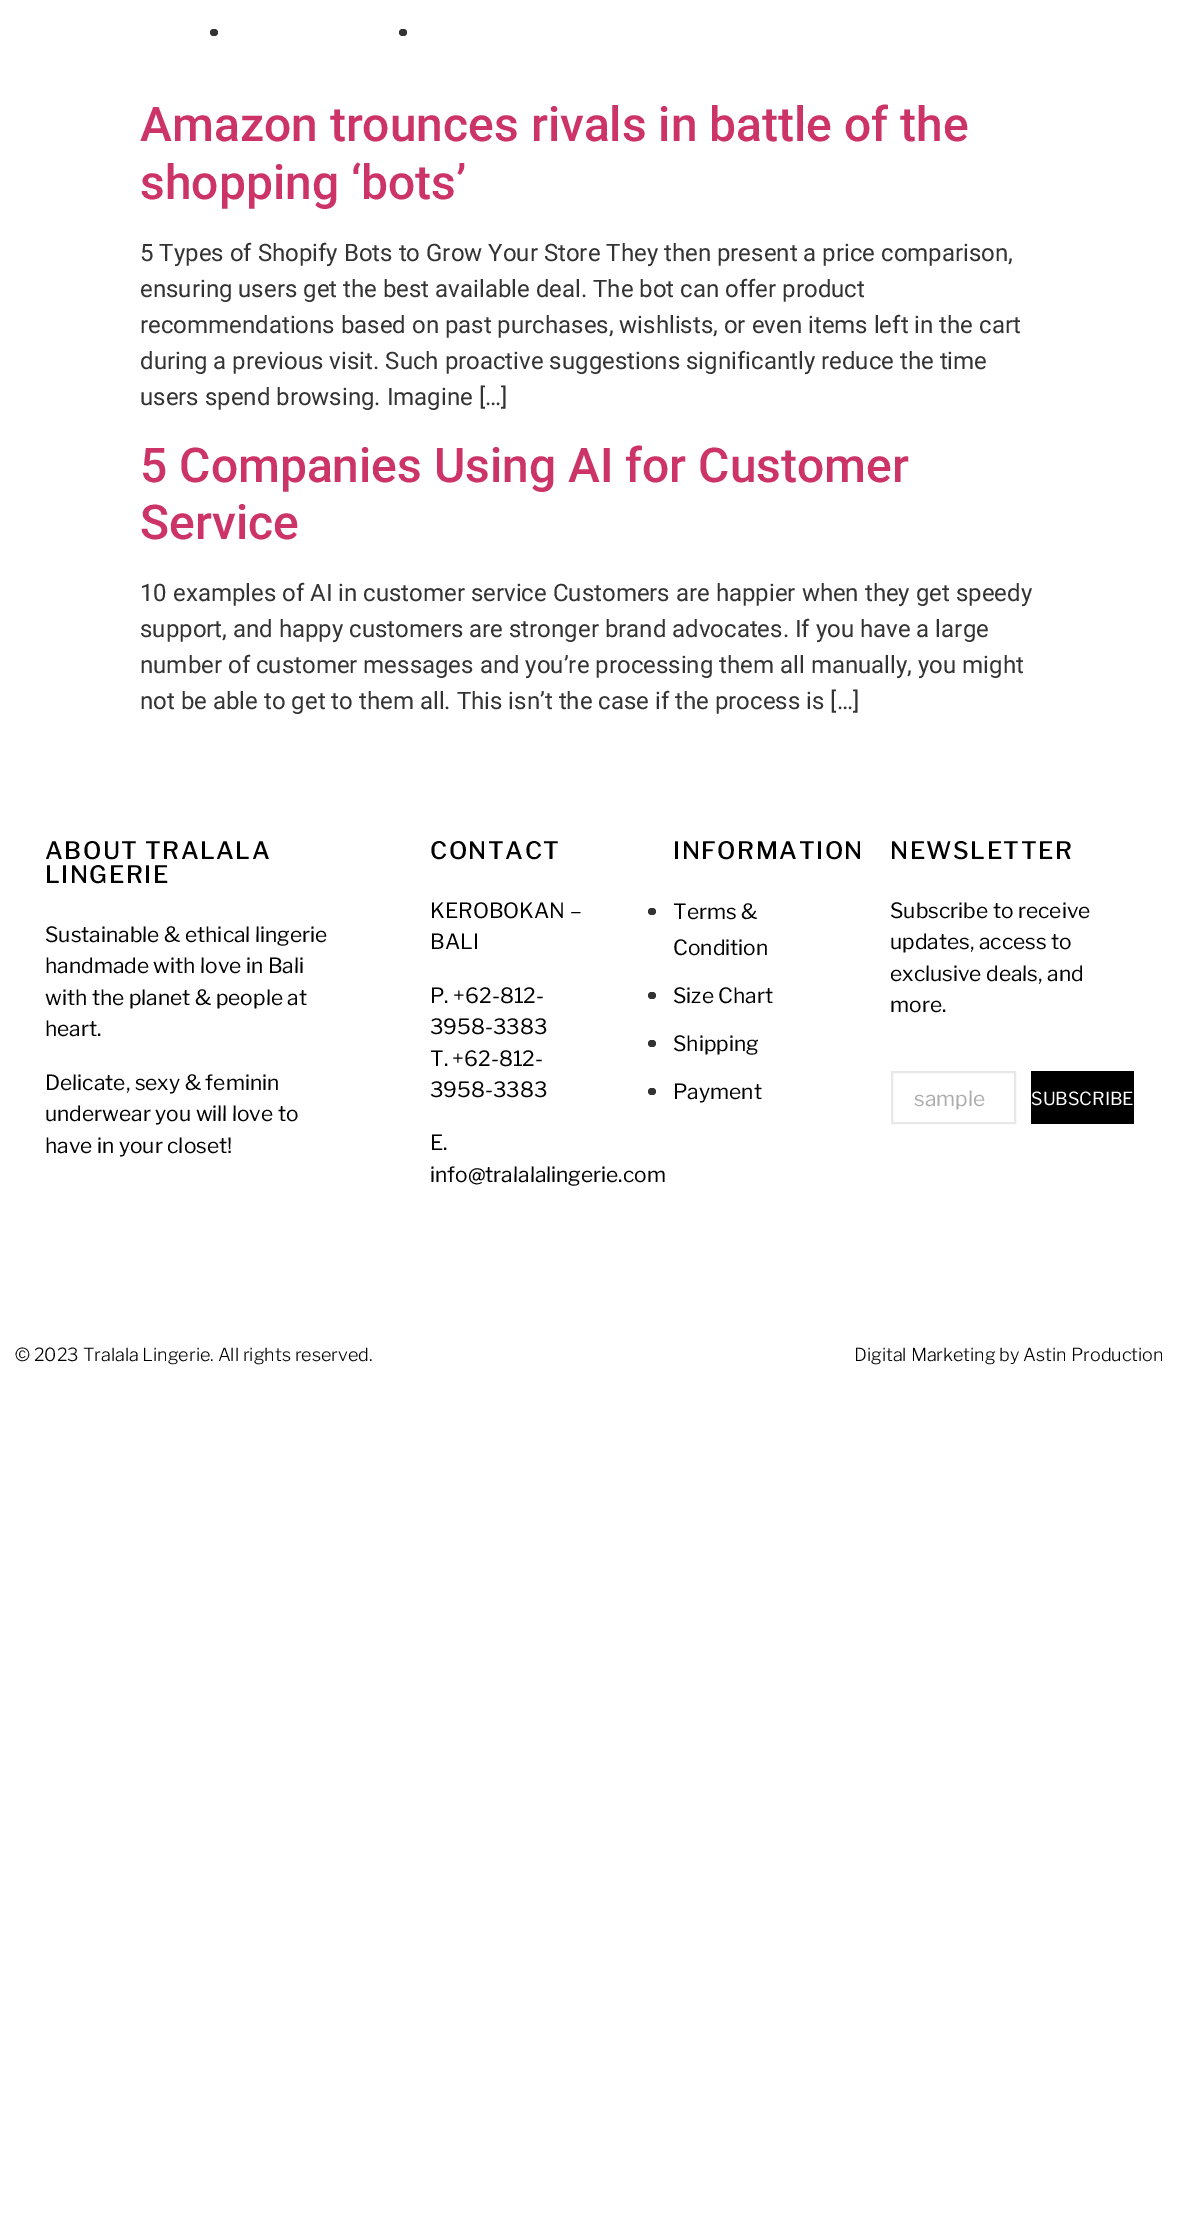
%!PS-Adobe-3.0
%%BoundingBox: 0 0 1179 2213
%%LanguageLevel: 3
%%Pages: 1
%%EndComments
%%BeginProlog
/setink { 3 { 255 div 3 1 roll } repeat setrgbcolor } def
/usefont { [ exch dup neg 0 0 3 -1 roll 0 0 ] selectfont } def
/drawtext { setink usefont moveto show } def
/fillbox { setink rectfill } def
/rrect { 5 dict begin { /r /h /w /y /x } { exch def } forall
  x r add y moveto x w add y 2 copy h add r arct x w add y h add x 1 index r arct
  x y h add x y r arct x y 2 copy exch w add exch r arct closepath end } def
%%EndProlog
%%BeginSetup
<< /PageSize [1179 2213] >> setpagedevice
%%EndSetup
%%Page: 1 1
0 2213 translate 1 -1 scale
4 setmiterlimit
0 0 1179 2213 255 255 255 fillbox
51 51 51 setink
210 29 8 7 3.5 rrect fill
399 29 8 7 3.5 rrect fill
(Amazon trounces rivals in battle of the) 140 141 /Roboto-Medium 48 204 51 102 drawtext
(shopping ‘bots’) 140 199 /Roboto-Medium 48 204 51 102 drawtext
(5 Types of Shopify Bots to Grow Your Store They then present a price comparison,) 140 261 /Roboto-Regular 24 51 51 51 drawtext
(ensuring users get the best available deal. The bot can offer product) 140 297 /Roboto-Regular 24 51 51 51 drawtext
(recommendations based on past purchases, wishlists, or even items left in the cart) 140 333 /Roboto-Regular 24 51 51 51 drawtext
(during a previous visit. Such proactive suggestions significantly reduce the time) 140 369 /Roboto-Regular 24 51 51 51 drawtext
(users spend browsing. Imagine […]) 140 405 /Roboto-Regular 24 51 51 51 drawtext
(5 Companies Using AI for Customer) 140 482 /Roboto-Medium 48 204 51 102 drawtext
(Service) 140 539 /Roboto-Medium 48 204 51 102 drawtext
(10 examples of AI in customer service Customers are happier when they get speedy) 140 601 /Roboto-Regular 24 51 51 51 drawtext
(support, and happy customers are stronger brand advocates. If you have a large) 140 637 /Roboto-Regular 24 51 51 51 drawtext
(number of customer messages and you’re processing them all manually, you might) 140 673 /Roboto-Regular 24 51 51 51 drawtext
(not be able to get to them all. This isn’t the case if the process is […]) 140 709 /Roboto-Regular 24 51 51 51 drawtext
/LibreFranklin-Medium 24 usefont
0 0 0 setink
45 859 moveto 1.5 0 (ABOUT TRALALA) ashow
45 883 moveto 1.5 0 (LINGERIE) ashow
(Sustainable & ethical lingerie) 45 942 /LibreFranklin-Regular 21 0 0 0 drawtext
(handmade with love in Bali) 45 973 /LibreFranklin-Regular 21 0 0 0 drawtext
(with the planet & people at) 45 1005 /LibreFranklin-Regular 21 0 0 0 drawtext
(heart.) 45 1036 /LibreFranklin-Regular 21 0 0 0 drawtext
(Delicate, sexy & feminin) 45 1090 /LibreFranklin-Regular 21 0 0 0 drawtext
(underwear you will love to) 45 1121 /LibreFranklin-Regular 21 0 0 0 drawtext
(have in your closet!) 45 1153 /LibreFranklin-Regular 21 0 0 0 drawtext
/LibreFranklin-Medium 24 usefont
430 859 moveto 1.5 0 (CONTACT) ashow
(KEROBOKAN –) 430 918 /LibreFranklin-Regular 21 0 0 0 drawtext
(BALI) 430 949 /LibreFranklin-Regular 21 0 0 0 drawtext
(P. +62-812-) 430 1003 /LibreFranklin-Regular 21 0 0 0 drawtext
(3958-3383) 430 1034 /LibreFranklin-Regular 21 0 0 0 drawtext
(T. +62-812-) 430 1066 /LibreFranklin-Regular 21 0 0 0 drawtext
(3958-3383) 430 1097 /LibreFranklin-Regular 21 0 0 0 drawtext
(E.) 430 1150 /LibreFranklin-Regular 21 0 0 0 drawtext
(info@tralalalingerie.com) 430 1182 /LibreFranklin-Regular 21 0 0 0 drawtext
/LibreFranklin-Medium 24 usefont
673 859 moveto 1.5 0 (INFORMATION) ashow
51 51 51 setink
648 908 8 7 3.5 rrect fill
(Terms &) 673 919 /LibreFranklin-Regular 21 0 0 0 drawtext
(Condition) 673 955 /LibreFranklin-Regular 21 0 0 0 drawtext
51 51 51 setink
648 992 8 7 3.5 rrect fill
(Size Chart) 673 1003 /LibreFranklin-Regular 21 0 0 0 drawtext
51 51 51 setink
648 1040 8 7 3.5 rrect fill
(Shipping) 673 1051 /LibreFranklin-Regular 21 0 0 0 drawtext
51 51 51 setink
648 1088 8 7 3.5 rrect fill
(Payment) 673 1099 /LibreFranklin-Regular 21 0 0 0 drawtext
/LibreFranklin-Medium 24 usefont
890 859 moveto 1.5 0 (NEWSLETTER) ashow
(Subscribe to receive) 890 918 /LibreFranklin-Regular 21 0 0 0 drawtext
(updates, access to) 890 949 /LibreFranklin-Regular 21 0 0 0 drawtext
(exclusive deals, and) 890 981 /LibreFranklin-Regular 21 0 0 0 drawtext
(more.) 890 1012 /LibreFranklin-Regular 21 0 0 0 drawtext
232 232 232 setink
2 setlinewidth
892 1072 123 51 rectstroke
(sample) 914 1106 /LibreFranklin-Regular 21 173 173 173 drawtext
1031 1071 103 53 0 0 0 fillbox
(SUBSCRIBE) 1031 1105 /LibreFranklin-Regular 18 255 255 255 drawtext
(© 2023 Tralala Lingerie. All rights reserved.) 15 1361 /LibreFranklin-Light 18 0 0 0 drawtext
(Digital Marketing by Astin Production) 854 1361 /LibreFranklin-Light 18 0 0 0 drawtext
showpage
%%EOF
